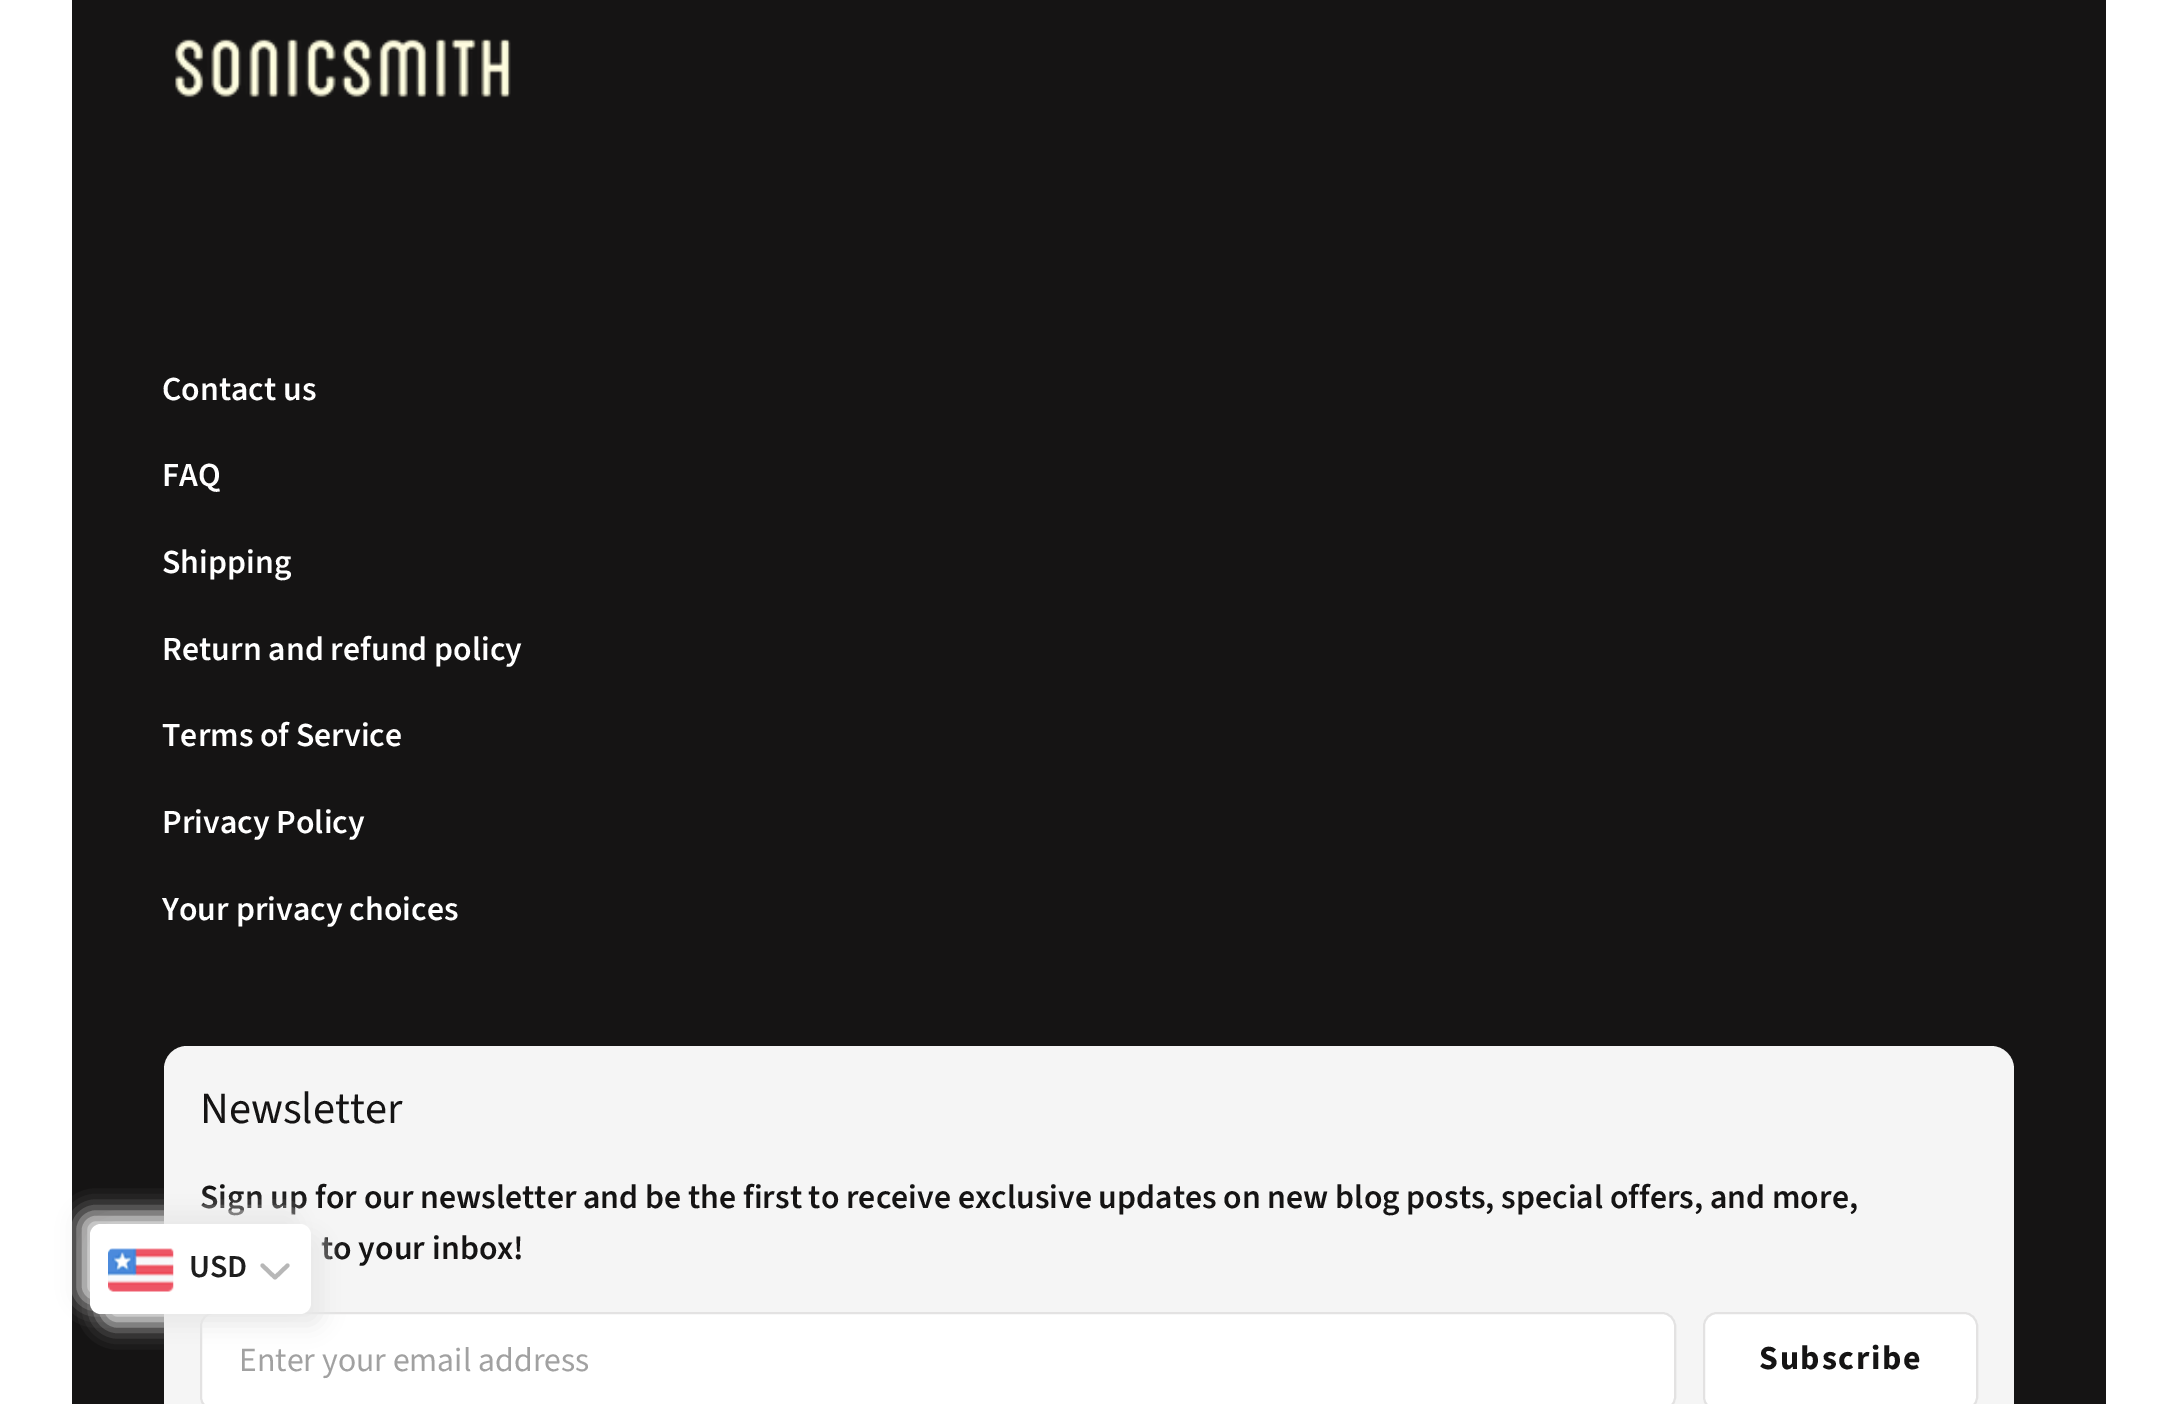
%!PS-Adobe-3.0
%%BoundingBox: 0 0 2178 1404
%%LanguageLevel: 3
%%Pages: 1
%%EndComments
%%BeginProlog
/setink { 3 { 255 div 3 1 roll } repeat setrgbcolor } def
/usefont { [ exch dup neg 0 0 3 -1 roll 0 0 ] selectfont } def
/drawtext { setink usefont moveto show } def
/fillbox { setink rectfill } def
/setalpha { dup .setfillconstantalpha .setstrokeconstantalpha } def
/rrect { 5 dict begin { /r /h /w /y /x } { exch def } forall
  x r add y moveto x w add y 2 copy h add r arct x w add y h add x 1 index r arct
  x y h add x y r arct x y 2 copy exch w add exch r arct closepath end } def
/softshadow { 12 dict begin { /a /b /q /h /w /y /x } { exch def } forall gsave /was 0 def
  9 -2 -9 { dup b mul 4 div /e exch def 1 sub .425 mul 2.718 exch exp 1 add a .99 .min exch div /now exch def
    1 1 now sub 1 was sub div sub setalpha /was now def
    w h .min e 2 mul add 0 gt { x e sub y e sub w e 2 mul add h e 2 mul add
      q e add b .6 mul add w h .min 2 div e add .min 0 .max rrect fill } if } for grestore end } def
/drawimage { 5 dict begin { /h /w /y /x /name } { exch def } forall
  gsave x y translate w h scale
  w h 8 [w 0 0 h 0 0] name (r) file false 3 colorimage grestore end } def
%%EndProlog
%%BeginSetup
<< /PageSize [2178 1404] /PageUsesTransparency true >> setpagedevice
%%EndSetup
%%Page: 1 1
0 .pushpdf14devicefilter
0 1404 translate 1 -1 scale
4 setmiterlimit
0 0 2178 1404 255 255 255 fillbox
72 0 2034 1404 21 20 20 fillbox
(assets/img1.rgb) 175 38 336 60 drawimage
(Contact us) 162 400 /SourceSansPro-SemiBold 33.75 255 255 255 drawtext
(FAQ) 162 486 /SourceSansPro-SemiBold 33.75 255 255 255 drawtext
(Shipping) 162 573 /SourceSansPro-SemiBold 33.75 255 255 255 drawtext
(Return and refund policy) 162 660 /SourceSansPro-SemiBold 33.75 255 255 255 drawtext
(Terms of Service) 162 746 /SourceSansPro-SemiBold 33.75 255 255 255 drawtext
(Privacy Policy) 162 833 /SourceSansPro-SemiBold 33.75 255 255 255 drawtext
(Your privacy choices) 162 920 /SourceSansPro-SemiBold 33.75 255 255 255 drawtext
245 245 245 setink
164 1046 1850 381 23 rrect fill
(Newsletter) 200 1123 /SourceSansPro-Regular 44.5 21 20 20 drawtext
(Sign up for our newsletter and be the first to receive exclusive updates on new blog posts, special offers, and more,) 200 1208 /SourceSansPro-SemiBold 33.75 21 20 20 drawtext
(to your inbox!) 321 1259 /SourceSansPro-SemiBold 33.75 21 20 20 drawtext
255 255 255 setink
200 1312 1476 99 14 rrect fill
0.12 setalpha
21 20 20 setink
2 setlinewidth
201 1313 1474 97 13 rrect stroke
1 setalpha
(Enter your email address) 239 1371 /SourceSansPro-Regular 33.75 161 161 161 drawtext
255 255 255 setink
1703 1312 275 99 14 rrect fill
0.12 setalpha
21 20 20 setink
1704 1313 273 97 13 rrect stroke
/SourceSansPro-Bold 33.75 usefont
1 setalpha
1759 1369 moveto 1.75 0 (Subscribe) ashow
232 232 232 setink
79 1213 220 90 11 11 1 softshadow
101 1235 221 90 11 11 1 softshadow
255 255 255 setink
90 1224 221 90 11 rrect fill
(assets/img2.rgb) 108 1248 66 44 drawimage
(USD) 189 1277 /SourceSansPro-SemiBold 32 30 30 30 drawtext
183 183 183 setink
4.1 setlinewidth
1 setlinecap
1 setlinejoin
262.5 1265.5 moveto 275 1277.5 lineto 287.5 1265.5 lineto stroke
.poppdf14devicefilter showpage
%%EOF
